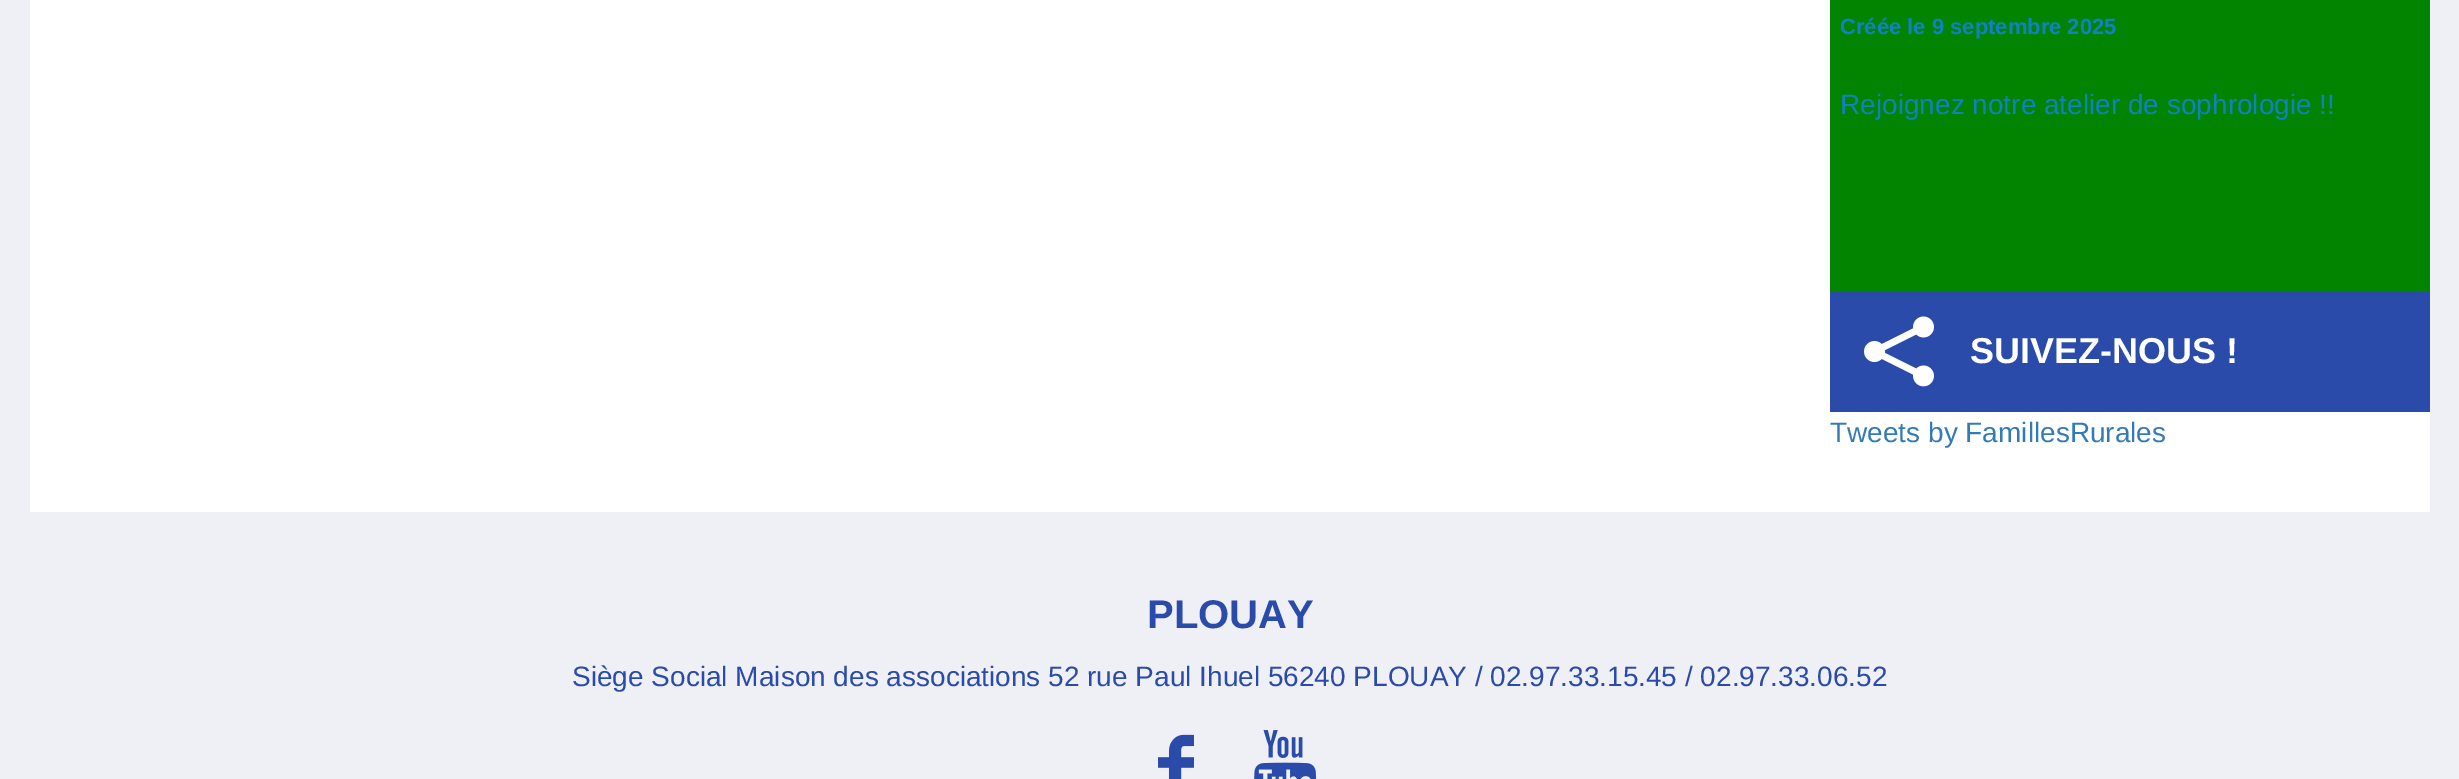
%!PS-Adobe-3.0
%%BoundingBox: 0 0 2459 779
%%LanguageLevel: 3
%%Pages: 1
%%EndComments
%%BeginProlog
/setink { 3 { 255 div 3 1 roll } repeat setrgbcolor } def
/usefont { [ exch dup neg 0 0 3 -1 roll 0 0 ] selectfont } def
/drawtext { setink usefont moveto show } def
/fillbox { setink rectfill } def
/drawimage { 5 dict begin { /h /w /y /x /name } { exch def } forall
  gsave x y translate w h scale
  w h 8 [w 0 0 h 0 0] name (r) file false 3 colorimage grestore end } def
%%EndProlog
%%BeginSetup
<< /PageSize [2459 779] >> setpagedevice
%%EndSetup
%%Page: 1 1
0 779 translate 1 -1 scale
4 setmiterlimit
0 0 2459 779 238 240 245 fillbox
30 0 2400 512 255 255 255 fillbox
1830 0 600 292 2 132 0 fillbox
(Créée le 9 septembre 2025) 1840 34 /LiberationSans-Bold 22 16 129 197 drawtext
(Rejoignez notre atelier de sophrologie !!) 1840 114 /LiberationSans-Regular 28 16 129 197 drawtext
1830 292 600 120 42 75 170 fillbox
(assets/img1.rgb) 1864 316 70 71 drawimage
(SUIVEZ-NOUS !) 1970 363 /LiberationSans-Bold 36 255 255 255 drawtext
(Tweets by FamillesRurales) 1830 442 /LiberationSans-Regular 28 51 122 183 drawtext
(PLOUAY) 1147 628 /LiberationSans-Bold 40 42 75 170 drawtext
(Siège Social Maison des associations 52 rue Paul Ihuel 56240 PLOUAY / 02.97.33.15.45 / 02.97.33.06.52) 572 686 /LiberationSans-Regular 28 42 75 170 drawtext
(assets/img2.rgb) 1158 734 36 45 drawimage
(assets/img3.rgb) 1254 730 63 49 drawimage
showpage
%%EOF
